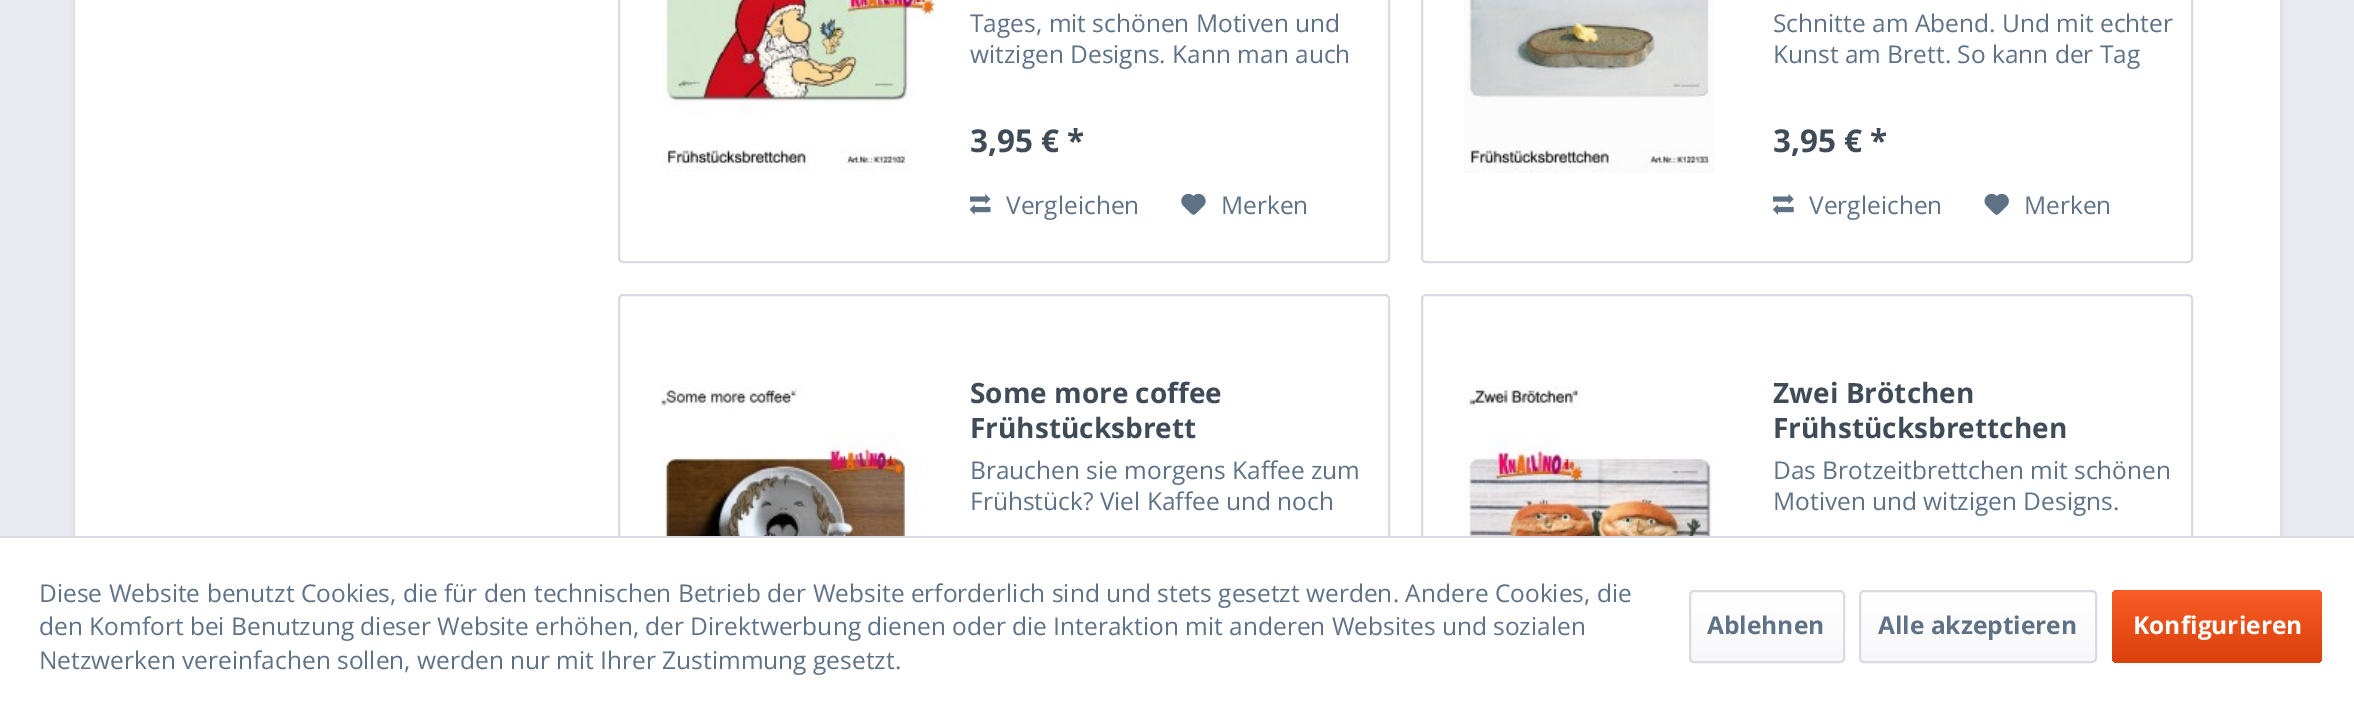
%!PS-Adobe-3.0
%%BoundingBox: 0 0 2354 713
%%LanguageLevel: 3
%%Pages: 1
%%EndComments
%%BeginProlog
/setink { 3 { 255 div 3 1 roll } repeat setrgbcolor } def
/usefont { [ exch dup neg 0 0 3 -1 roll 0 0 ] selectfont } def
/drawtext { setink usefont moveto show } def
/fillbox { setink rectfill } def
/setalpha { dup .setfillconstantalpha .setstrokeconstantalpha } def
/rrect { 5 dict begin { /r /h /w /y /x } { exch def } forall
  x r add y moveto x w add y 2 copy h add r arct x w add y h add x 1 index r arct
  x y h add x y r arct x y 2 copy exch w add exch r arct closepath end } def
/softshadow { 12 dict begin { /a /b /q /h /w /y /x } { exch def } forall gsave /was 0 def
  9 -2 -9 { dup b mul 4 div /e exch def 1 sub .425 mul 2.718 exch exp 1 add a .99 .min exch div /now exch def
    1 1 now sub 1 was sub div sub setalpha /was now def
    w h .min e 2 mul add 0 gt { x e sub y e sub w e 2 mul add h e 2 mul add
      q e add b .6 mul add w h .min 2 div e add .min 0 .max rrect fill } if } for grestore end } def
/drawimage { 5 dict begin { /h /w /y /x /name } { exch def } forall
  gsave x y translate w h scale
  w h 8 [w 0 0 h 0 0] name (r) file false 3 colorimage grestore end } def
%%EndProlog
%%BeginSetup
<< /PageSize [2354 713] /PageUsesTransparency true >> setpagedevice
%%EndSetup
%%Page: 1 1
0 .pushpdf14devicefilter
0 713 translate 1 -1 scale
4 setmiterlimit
0 0 2354 713 233 233 240 fillbox
218 218 229 setink
74 -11 2208 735 0 3.5 1 softshadow
75 0 2205 536 255 255 255 fillbox
218 218 229 setink
2 setlinewidth
619 -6 770 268 4 rrect stroke
(assets/img1.rgb) 661 0 274 173 drawimage
(Tages, mit schönen Motiven und) 970 32 /OpenSans-Regular 24.5 95 114 133 drawtext
(witzigen Designs. Kann man auch) 970 63 /OpenSans-Regular 24.5 95 114 133 drawtext
(3,95 € *) 970 152 /OpenSans-Bold 31.5 63 76 88 drawtext
(assets/img2.rgb) 970 194 21 21 drawimage
(Vergleichen) 1006 214 /OpenSans-Regular 24.5 95 114 133 drawtext
(assets/img3.rgb) 1181 193 25 22 drawimage
(Merken) 1221 214 /OpenSans-Regular 24.5 95 114 133 drawtext
218 218 229 setink
1422 -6 770 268 4 rrect stroke
(assets/img4.rgb) 1464 0 251 173 drawimage
(Schnitte am Abend. Und mit echter) 1773 32 /OpenSans-Regular 24.5 95 114 133 drawtext
(Kunst am Brett. So kann der Tag) 1773 63 /OpenSans-Regular 24.5 95 114 133 drawtext
(3,95 € *) 1773 152 /OpenSans-Bold 31.5 63 76 88 drawtext
(assets/img5.rgb) 1773 194 21 21 drawimage
(Vergleichen) 1809 214 /OpenSans-Regular 24.5 95 114 133 drawtext
(assets/img6.rgb) 1984 193 25 22 drawimage
(Merken) 2024 214 /OpenSans-Regular 24.5 95 114 133 drawtext
218 218 229 setink
619 295 770 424 4 rrect stroke
(assets/img7.rgb) 660 385 263 151 drawimage
(Some more coffee) 970 403 /OpenSans-Bold 28 63 76 88 drawtext
(Frühstücksbrett) 970 438 /OpenSans-Bold 28 63 76 88 drawtext
(Brauchen sie morgens Kaffee zum) 970 479 /OpenSans-Regular 24.5 95 114 133 drawtext
(Frühstück? Viel Kaffee und noch) 970 510 /OpenSans-Regular 24.5 95 114 133 drawtext
218 218 229 setink
1422 295 770 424 4 rrect stroke
(assets/img8.rgb) 1464 385 250 151 drawimage
(Zwei Brötchen) 1773 403 /OpenSans-Bold 28 63 76 88 drawtext
(Frühstücksbrettchen) 1773 438 /OpenSans-Bold 28 63 76 88 drawtext
(Das Brotzeitbrettchen mit schönen) 1773 479 /OpenSans-Regular 24.5 95 114 133 drawtext
(Motiven und witzigen Designs.) 1773 510 /OpenSans-Regular 24.5 95 114 133 drawtext
0 538 2354 175 255 255 255 fillbox
0 536 2354 2 218 218 229 fillbox
(Diese Website benutzt Cookies, die für den technischen Betrieb der Website erforderlich sind und stets gesetzt werden. Andere Cookies, die) 39 602 /OpenSans-Regular 24.5 95 114 133 drawtext
(den Komfort bei Benutzung dieser Website erhöhen, der Direktwerbung dienen oder die Interaktion mit anderen Websites und sozialen) 39 635 /OpenSans-Regular 24.5 95 114 133 drawtext
(Netzwerken vereinfachen sollen, werden nur mit Ihrer Zustimmung gesetzt.) 39 669 /OpenSans-Regular 24.5 95 114 133 drawtext
gsave 1691 592 152 70 4 rrect clip newpath
<< /ShadingType 2 /ColorSpace /DeviceRGB /Coords [1767 592 1767 662] /Extend [true true] /Function << /FunctionType 2 /Domain [0 1] /C0 [1 1 1] /C1 [0.973 0.973 0.98] /N 1 >> >> shfill grestore
218 218 229 setink
1690 591 154 71 4 rrect stroke
(Ablehnen) 1707 634 /OpenSans-Bold 24.5 95 114 133 drawtext
gsave 1860 592 235 70 4 rrect clip newpath
<< /ShadingType 2 /ColorSpace /DeviceRGB /Coords [1978 592 1978 662] /Extend [true true] /Function << /FunctionType 2 /Domain [0 1] /C0 [1 1 1] /C1 [0.973 0.973 0.98] /N 1 >> >> shfill grestore
218 218 229 setink
1860 591 236 71 4 rrect stroke
(Alle akzeptieren) 1878 634 /OpenSans-Bold 24.5 95 114 133 drawtext
gsave 2112 590 210 73 5 rrect clip newpath
<< /ShadingType 2 /ColorSpace /DeviceRGB /Coords [2217 590 2217 663] /Extend [true true] /Function << /FunctionType 2 /Domain [0 1] /C0 [0.98 0.365 0.153] /C1 [0.851 0.251 0.043] /N 1 >> >> shfill grestore
(Konfigurieren) 2133 634 /OpenSans-Bold 24.5 255 255 255 drawtext
.poppdf14devicefilter showpage
%%EOF
